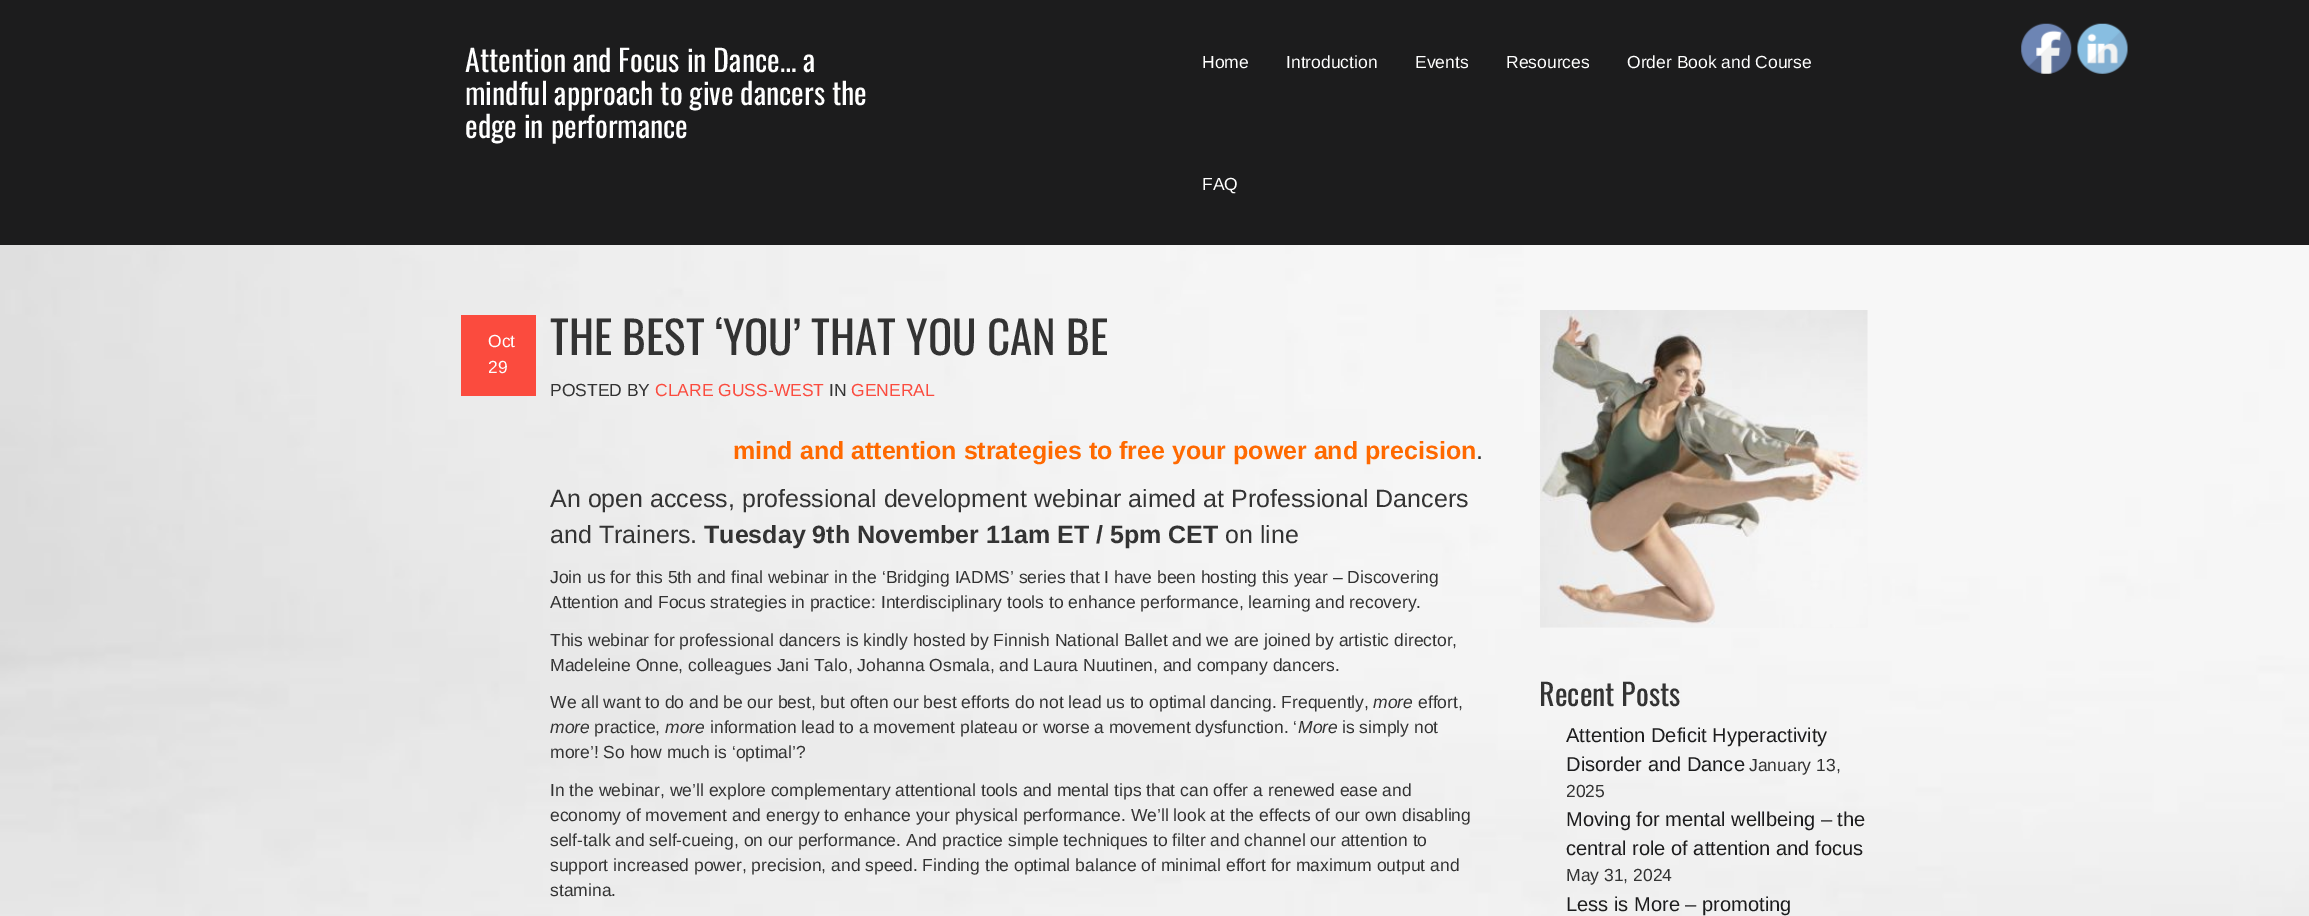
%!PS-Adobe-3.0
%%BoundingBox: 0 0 2309 916
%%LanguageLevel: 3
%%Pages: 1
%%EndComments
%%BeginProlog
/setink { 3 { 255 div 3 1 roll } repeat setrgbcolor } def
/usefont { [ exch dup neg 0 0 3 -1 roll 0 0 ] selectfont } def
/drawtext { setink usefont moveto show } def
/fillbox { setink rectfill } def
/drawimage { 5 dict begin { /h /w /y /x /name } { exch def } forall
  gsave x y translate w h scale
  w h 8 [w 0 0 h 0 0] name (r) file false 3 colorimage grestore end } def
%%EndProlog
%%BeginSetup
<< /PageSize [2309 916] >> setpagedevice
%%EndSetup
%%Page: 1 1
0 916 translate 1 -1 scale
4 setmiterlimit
0 0 2309 916 255 255 255 fillbox
(assets/img1.rgb) 0 245 2309 671 drawimage
0 0 2309 245 28 28 29 fillbox
(Attention and Focus in Dance… a) 465 72 /Oswald-Regular 30 255 255 255 drawtext
(mindful approach to give dancers the) 465 105 /Oswald-Regular 30 255 255 255 drawtext
(edge in performance) 465 138 /Oswald-Regular 30 255 255 255 drawtext
(Home) 1202 68 /LiberationSans-Regular 17.5 255 255 255 drawtext
(Introduction) 1286 68 /LiberationSans-Regular 17.5 255 255 255 drawtext
(Events) 1415 68 /LiberationSans-Regular 17.5 255 255 255 drawtext
(Resources) 1506 68 /LiberationSans-Regular 17.5 255 255 255 drawtext
(Order Book and Course) 1627 68 /LiberationSans-Regular 17.5 255 255 255 drawtext
(FAQ) 1202 190 /LiberationSans-Regular 17.5 255 255 255 drawtext
(assets/img2.rgb) 2021 23 51 51 drawimage
(assets/img3.rgb) 2077 23 51 51 drawimage
461 315 75 81 251 75 62 fillbox
(Oct) 488 347 /LiberationSans-Regular 17.5 255 255 255 drawtext
(29) 488 373 /LiberationSans-Regular 17.5 255 255 255 drawtext
(THE BEST ‘YOU’ THAT YOU CAN BE) 550 355 /Oswald-Regular 45 51 51 51 drawtext
(POSTED BY) 550 396 /LiberationSans-Regular 17.5 51 51 51 drawtext
(CLARE GUSS-WEST) 655 396 /LiberationSans-Regular 17.5 251 75 62 drawtext
(IN) 829 396 /LiberationSans-Regular 17.5 51 51 51 drawtext
(GENERAL) 851 396 /LiberationSans-Regular 17.5 251 75 62 drawtext
(mind and attention strategies to free your power and precision) 733 459 /LiberationSans-Bold 25 255 105 0 drawtext
(.) 1476 459 /LiberationSans-Regular 25 51 51 51 drawtext
(An open access, professional development webinar aimed at Professional Dancers) 550 507 /LiberationSans-Regular 25 51 51 51 drawtext
(and Trainers.) 550 543 /LiberationSans-Regular 25 51 51 51 drawtext
(Tuesday 9th November 11am ET / 5pm CET) 704 543 /LiberationSans-Bold 25 51 51 51 drawtext
(on line) 1225 543 /LiberationSans-Regular 25 51 51 51 drawtext
(Join us for this 5th and final webinar in the ‘Bridging IADMS’ series that I have been hosting this year – Discovering) 550 583 /LiberationSans-Regular 17.5 51 51 51 drawtext
(Attention and Focus strategies in practice: Interdisciplinary tools to enhance performance, learning and recovery.) 550 608 /LiberationSans-Regular 17.5 51 51 51 drawtext
(This webinar for professional dancers is kindly hosted by Finnish National Ballet and we are joined by artistic director,) 550 646 /LiberationSans-Regular 17.5 51 51 51 drawtext
(Madeleine Onne, colleagues Jani Talo, Johanna Osmala, and Laura Nuutinen, and company dancers.) 550 671 /LiberationSans-Regular 17.5 51 51 51 drawtext
(We all want to do and be our best, but often our best efforts do not lead us to optimal dancing. Frequently,) 550 708 /LiberationSans-Regular 17.5 51 51 51 drawtext
(more) 1373 708 /LiberationSans-Italic 17.5 51 51 51 drawtext
(effort,) 1418 708 /LiberationSans-Regular 17.5 51 51 51 drawtext
(more) 550 733 /LiberationSans-Italic 17.5 51 51 51 drawtext
(practice,) 594 733 /LiberationSans-Regular 17.5 51 51 51 drawtext
(more) 665 733 /LiberationSans-Italic 17.5 51 51 51 drawtext
(information lead to a movement plateau or worse a movement dysfunction. ‘) 710 733 /LiberationSans-Regular 17.5 51 51 51 drawtext
(More) 1298 733 /LiberationSans-Italic 17.5 51 51 51 drawtext
(is simply not) 1342 733 /LiberationSans-Regular 17.5 51 51 51 drawtext
(more’! So how much is ‘optimal’?) 550 758 /LiberationSans-Regular 17.5 51 51 51 drawtext
(In the webinar, we’ll explore complementary attentional tools and mental tips that can offer a renewed ease and) 550 796 /LiberationSans-Regular 17.5 51 51 51 drawtext
(economy of movement and energy to enhance your physical performance. We’ll look at the effects of our own disabling) 550 821 /LiberationSans-Regular 17.5 51 51 51 drawtext
(self-talk and self-cueing, on our performance. And practice simple techniques to filter and channel our attention to) 550 846 /LiberationSans-Regular 17.5 51 51 51 drawtext
(support increased power, precision, and speed. Finding the optimal balance of minimal effort for maximum output and) 550 871 /LiberationSans-Regular 17.5 51 51 51 drawtext
(stamina.) 550 896 /LiberationSans-Regular 17.5 51 51 51 drawtext
(assets/img4.rgb) 1540 310 328 318 drawimage
(Recent Posts) 1539 706 /Oswald-Regular 30 51 51 51 drawtext
(Attention Deficit Hyperactivity) 1566 742 /LiberationSans-Regular 20.1 28 28 29 drawtext
(Disorder and Dance) 1566 771 /LiberationSans-Regular 20.1 28 28 29 drawtext
(January 13,) 1749 771 /LiberationSans-Regular 17.5 51 51 51 drawtext
(2025) 1566 797 /LiberationSans-Regular 17.5 51 51 51 drawtext
(Moving for mental wellbeing – the) 1566 826 /LiberationSans-Regular 20.1 28 28 29 drawtext
(central role of attention and focus) 1566 855 /LiberationSans-Regular 20.1 28 28 29 drawtext
(May 31, 2024) 1566 881 /LiberationSans-Regular 17.5 51 51 51 drawtext
(Less is More – promoting) 1566 911 /LiberationSans-Regular 20.1 28 28 29 drawtext
showpage
%%EOF
